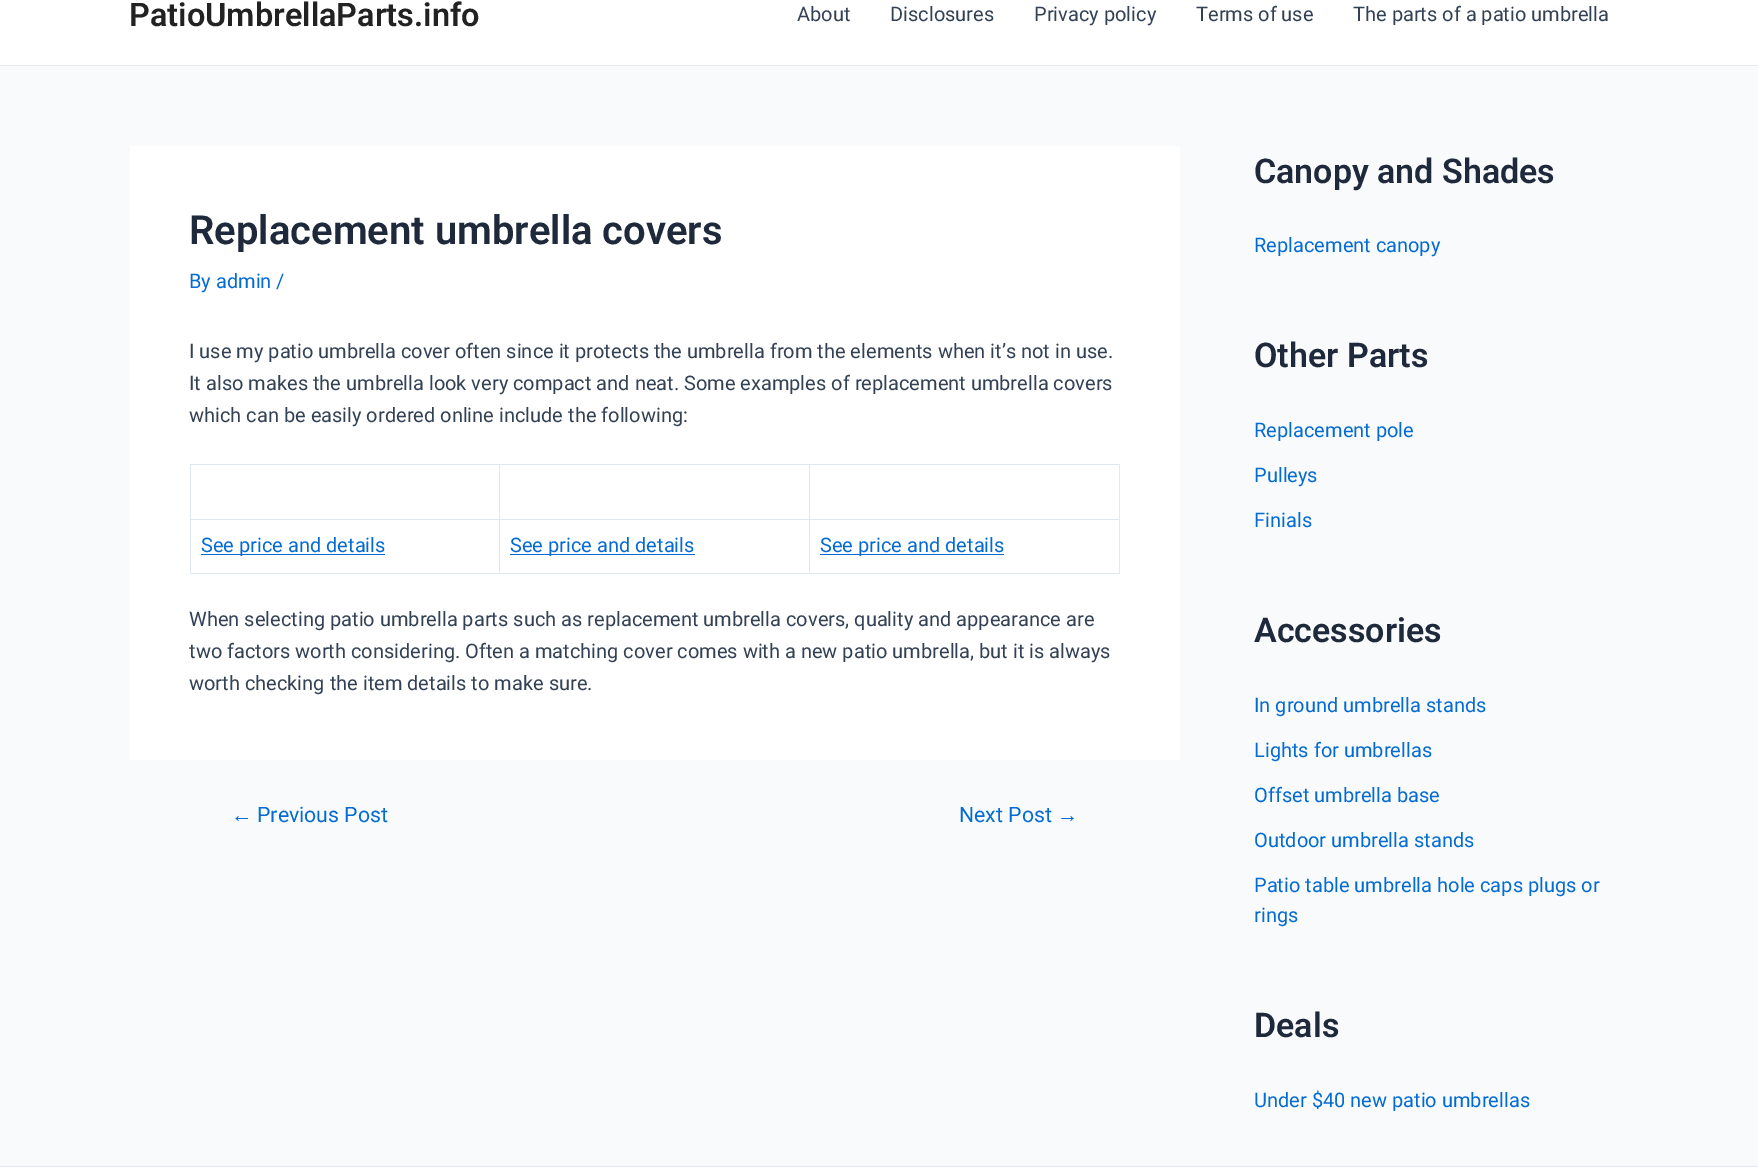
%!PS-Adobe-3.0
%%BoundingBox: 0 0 1758 1167
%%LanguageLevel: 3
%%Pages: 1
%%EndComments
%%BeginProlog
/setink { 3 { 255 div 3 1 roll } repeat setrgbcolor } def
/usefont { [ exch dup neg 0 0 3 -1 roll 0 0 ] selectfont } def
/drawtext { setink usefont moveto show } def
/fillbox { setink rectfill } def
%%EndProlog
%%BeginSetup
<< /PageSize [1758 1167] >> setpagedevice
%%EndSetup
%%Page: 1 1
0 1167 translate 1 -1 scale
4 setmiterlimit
0 0 1758 1167 249 250 251 fillbox
0 0 1758 65 255 255 255 fillbox
0 65 1758 1 234 234 234 fillbox
(PatioUmbrellaParts.info) 129 26 /Roboto-SemiBold 32.5 34 34 34 drawtext
(About) 797 21 /Roboto-Regular 20 51 65 85 drawtext
(Disclosures) 890 21 /Roboto-Regular 20 51 65 85 drawtext
(Privacy policy) 1034 21 /Roboto-Regular 20 51 65 85 drawtext
(Terms of use) 1196 21 /Roboto-Regular 20 51 65 85 drawtext
(The parts of a patio umbrella) 1353 21 /Roboto-Regular 20 51 65 85 drawtext
130 146 1050 614 255 255 255 fillbox
(Replacement umbrella covers) 189 244 /Roboto-SemiBold 40 30 41 59 drawtext
(By admin /) 189 288 /Roboto-Regular 20 4 107 210 drawtext
(I use my patio umbrella cover often since it protects the umbrella from the elements when it’s not in use.) 189 358 /Roboto-Regular 20 51 65 85 drawtext
(It also makes the umbrella look very compact and neat. Some examples of replacement umbrella covers) 189 390 /Roboto-Regular 20 51 65 85 drawtext
(which can be easily ordered online include the following:) 189 422 /Roboto-Regular 20 51 65 85 drawtext
190 464 930 1 226 232 240 fillbox
190 464 1 110 226 232 240 fillbox
499 465 1 109 226 232 240 fillbox
191 519 309 1 226 232 240 fillbox
809 465 1 109 226 232 240 fillbox
500 519 310 1 226 232 240 fillbox
1119 465 1 109 226 232 240 fillbox
810 519 310 1 226 232 240 fillbox
191 573 929 1 226 232 240 fillbox
201 554 184 1 4 107 210 fillbox
(See price and details) 201 552 /Roboto-Regular 20 4 107 210 drawtext
510 554 185 1 4 107 210 fillbox
(See price and details) 510 552 /Roboto-Regular 20 4 107 210 drawtext
820 554 184 1 4 107 210 fillbox
(See price and details) 820 552 /Roboto-Regular 20 4 107 210 drawtext
(When selecting patio umbrella parts such as replacement umbrella covers, quality and appearance are) 189 626 /Roboto-Regular 20 51 65 85 drawtext
(two factors worth considering. Often a matching cover comes with a new patio umbrella, but it is always) 189 658 /Roboto-Regular 20 51 65 85 drawtext
(worth checking the item details to make sure.) 189 690 /Roboto-Regular 20 51 65 85 drawtext
(←) 231 822 /LiberationSans-Regular 21.25 4 107 210 drawtext
(Previous Post) 257 822 /Roboto-Regular 21.25 4 107 210 drawtext
(Next Post) 959 822 /Roboto-Regular 21.25 4 107 210 drawtext
(→) 1057 822 /LiberationSans-Regular 21.25 4 107 210 drawtext
(Canopy and Shades) 1254 183 /Roboto-SemiBold 34 30 41 59 drawtext
(Replacement canopy) 1254 252 /Roboto-Regular 20 4 107 210 drawtext
(Other Parts) 1254 367 /Roboto-SemiBold 34 30 41 59 drawtext
(Replacement pole) 1254 437 /Roboto-Regular 20 4 107 210 drawtext
(Pulleys) 1254 482 /Roboto-Regular 20 4 107 210 drawtext
(Finials) 1254 527 /Roboto-Regular 20 4 107 210 drawtext
(Accessories) 1254 642 /Roboto-SemiBold 34 30 41 59 drawtext
(In ground umbrella stands) 1254 712 /Roboto-Regular 20 4 107 210 drawtext
(Lights for umbrellas) 1254 757 /Roboto-Regular 20 4 107 210 drawtext
(Offset umbrella base) 1254 802 /Roboto-Regular 20 4 107 210 drawtext
(Outdoor umbrella stands) 1254 847 /Roboto-Regular 20 4 107 210 drawtext
(Patio table umbrella hole caps plugs or) 1254 892 /Roboto-Regular 20 4 107 210 drawtext
(rings) 1254 922 /Roboto-Regular 20 4 107 210 drawtext
(Deals) 1254 1037 /Roboto-SemiBold 34 30 41 59 drawtext
(Under $40 new patio umbrellas) 1254 1107 /Roboto-Regular 20 4 107 210 drawtext
0 1166 1758 1 226 232 240 fillbox
showpage
%%EOF
